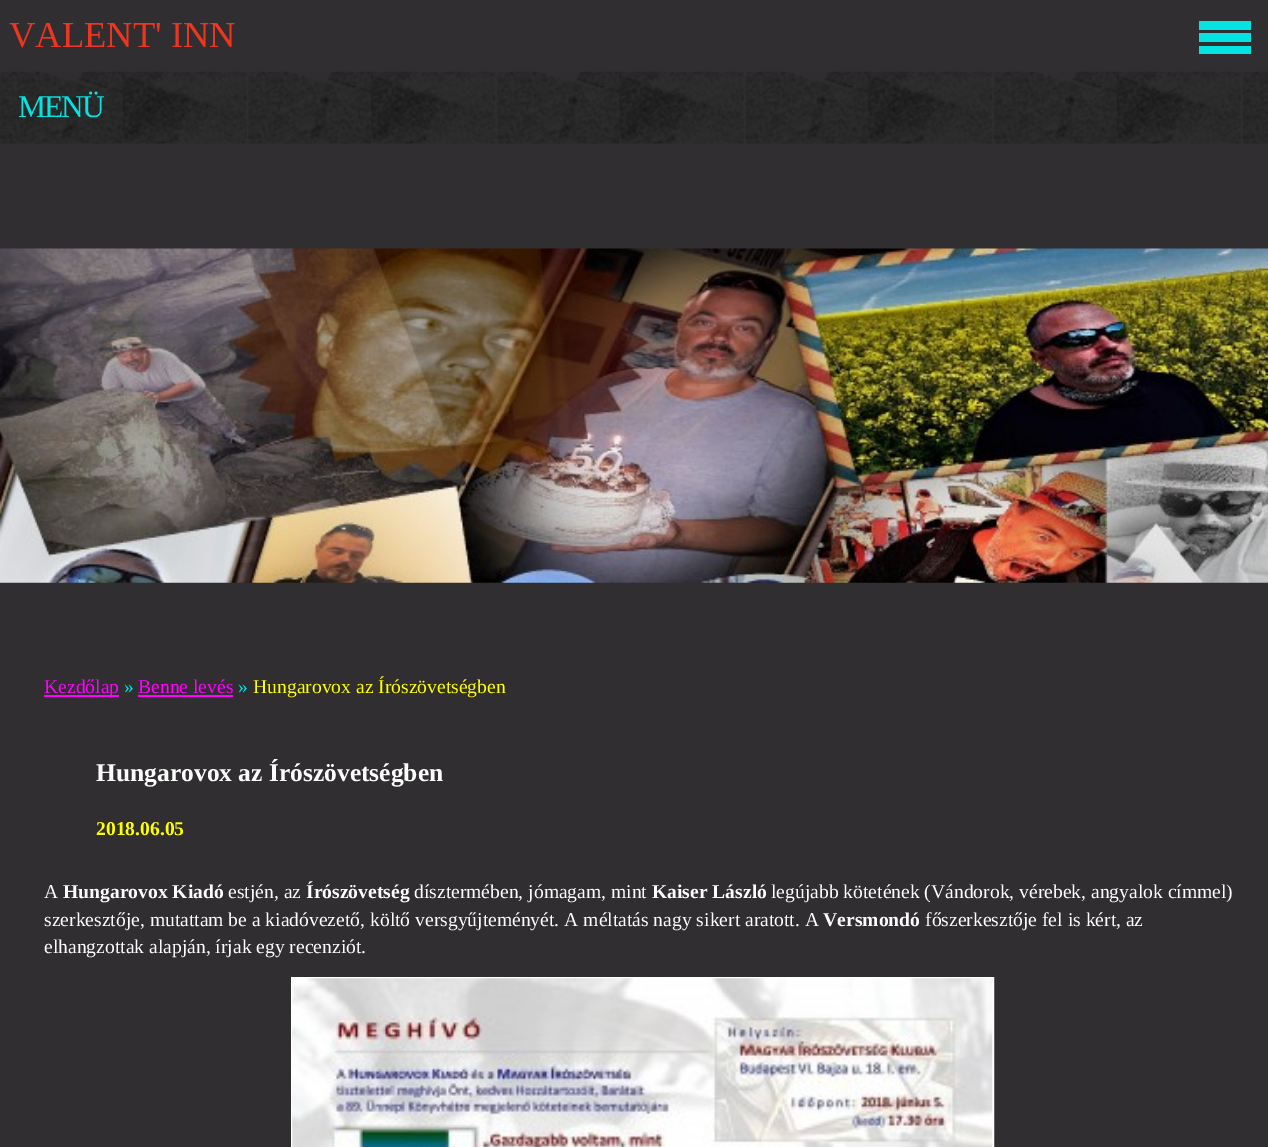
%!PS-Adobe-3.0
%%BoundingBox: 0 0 1268 1147
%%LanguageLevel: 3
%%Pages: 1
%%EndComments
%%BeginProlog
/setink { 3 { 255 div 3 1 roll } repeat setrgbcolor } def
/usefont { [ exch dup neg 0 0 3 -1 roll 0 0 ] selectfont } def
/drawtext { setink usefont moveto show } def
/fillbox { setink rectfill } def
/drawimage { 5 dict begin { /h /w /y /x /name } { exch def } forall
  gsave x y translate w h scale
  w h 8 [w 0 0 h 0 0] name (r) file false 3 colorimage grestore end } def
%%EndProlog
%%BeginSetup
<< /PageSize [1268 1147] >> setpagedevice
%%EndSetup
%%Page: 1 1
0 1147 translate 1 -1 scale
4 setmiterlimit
0 0 1268 1147 48 46 48 fillbox
(assets/img1.rgb) 0 248 1268 335 drawimage
(VALENT' INN) 9 47 /LiberationSerif-Regular 36.5 236 54 31 drawtext
1199 21 52 9 4 226 225 fillbox
1199 33 52 9 4 226 225 fillbox
1199 46 52 8 4 226 225 fillbox
(assets/img2.rgb) 0 71 1268 73 drawimage
/LiberationSerif-Regular 31.5 usefont
6 226 224 setink
18 117 moveto -2 0 (MENÜ) ashow
44 695 75 2 255 1 255 fillbox
(Kezdőlap) 44 693 /LiberationSerif-Regular 19.6 255 1 255 drawtext
(») 124 693 /LiberationSerif-Regular 19.6 6 226 224 drawtext
(Benne levés) 138 693 /LiberationSerif-Regular 19.6 255 1 255 drawtext
138 695 95 2 255 1 255 fillbox
(») 238 693 /LiberationSerif-Regular 19.6 6 226 224 drawtext
(Hungarovox az Írószövetségben) 253 693 /LiberationSerif-Regular 19.6 254 255 0 drawtext
(Hungarovox az Írószövetségben) 96 781 /LiberationSerif-Bold 25.5 255 255 255 drawtext
(2018.06.05) 96 835 /LiberationSerif-Bold 19.6 254 255 0 drawtext
(A) 44 898 /LiberationSerif-Regular 19.6 255 255 255 drawtext
(Hungarovox Kiadó) 63 898 /LiberationSerif-Bold 19.6 255 255 255 drawtext
(estjén, az) 228 898 /LiberationSerif-Regular 19.6 255 255 255 drawtext
(Írószövetség) 306 898 /LiberationSerif-Bold 19.6 255 255 255 drawtext
(dísztermében, jómagam, mint) 414 898 /LiberationSerif-Regular 19.6 255 255 255 drawtext
(Kaiser László) 652 898 /LiberationSerif-Bold 19.6 255 255 255 drawtext
(legújabb kötetének \(Vándorok, vérebek, angyalok címmel\)) 771 898 /LiberationSerif-Regular 19.6 255 255 255 drawtext
(szerkesztője, mutattam be a kiadóvezető, költő versgyűjteményét. A méltatás nagy sikert aratott. A) 44 926 /LiberationSerif-Regular 19.6 255 255 255 drawtext
(Versmondó) 823 926 /LiberationSerif-Bold 19.6 255 255 255 drawtext
(főszerkesztője fel is kért, az) 925 926 /LiberationSerif-Regular 19.6 255 255 255 drawtext
(elhangzottak alapján, írjak egy recenziót.) 44 953 /LiberationSerif-Regular 19.6 255 255 255 drawtext
2 setlinewidth
292 978 701 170 rectstroke
(assets/img3.rgb) 292 978 701 169 drawimage
showpage
%%EOF
